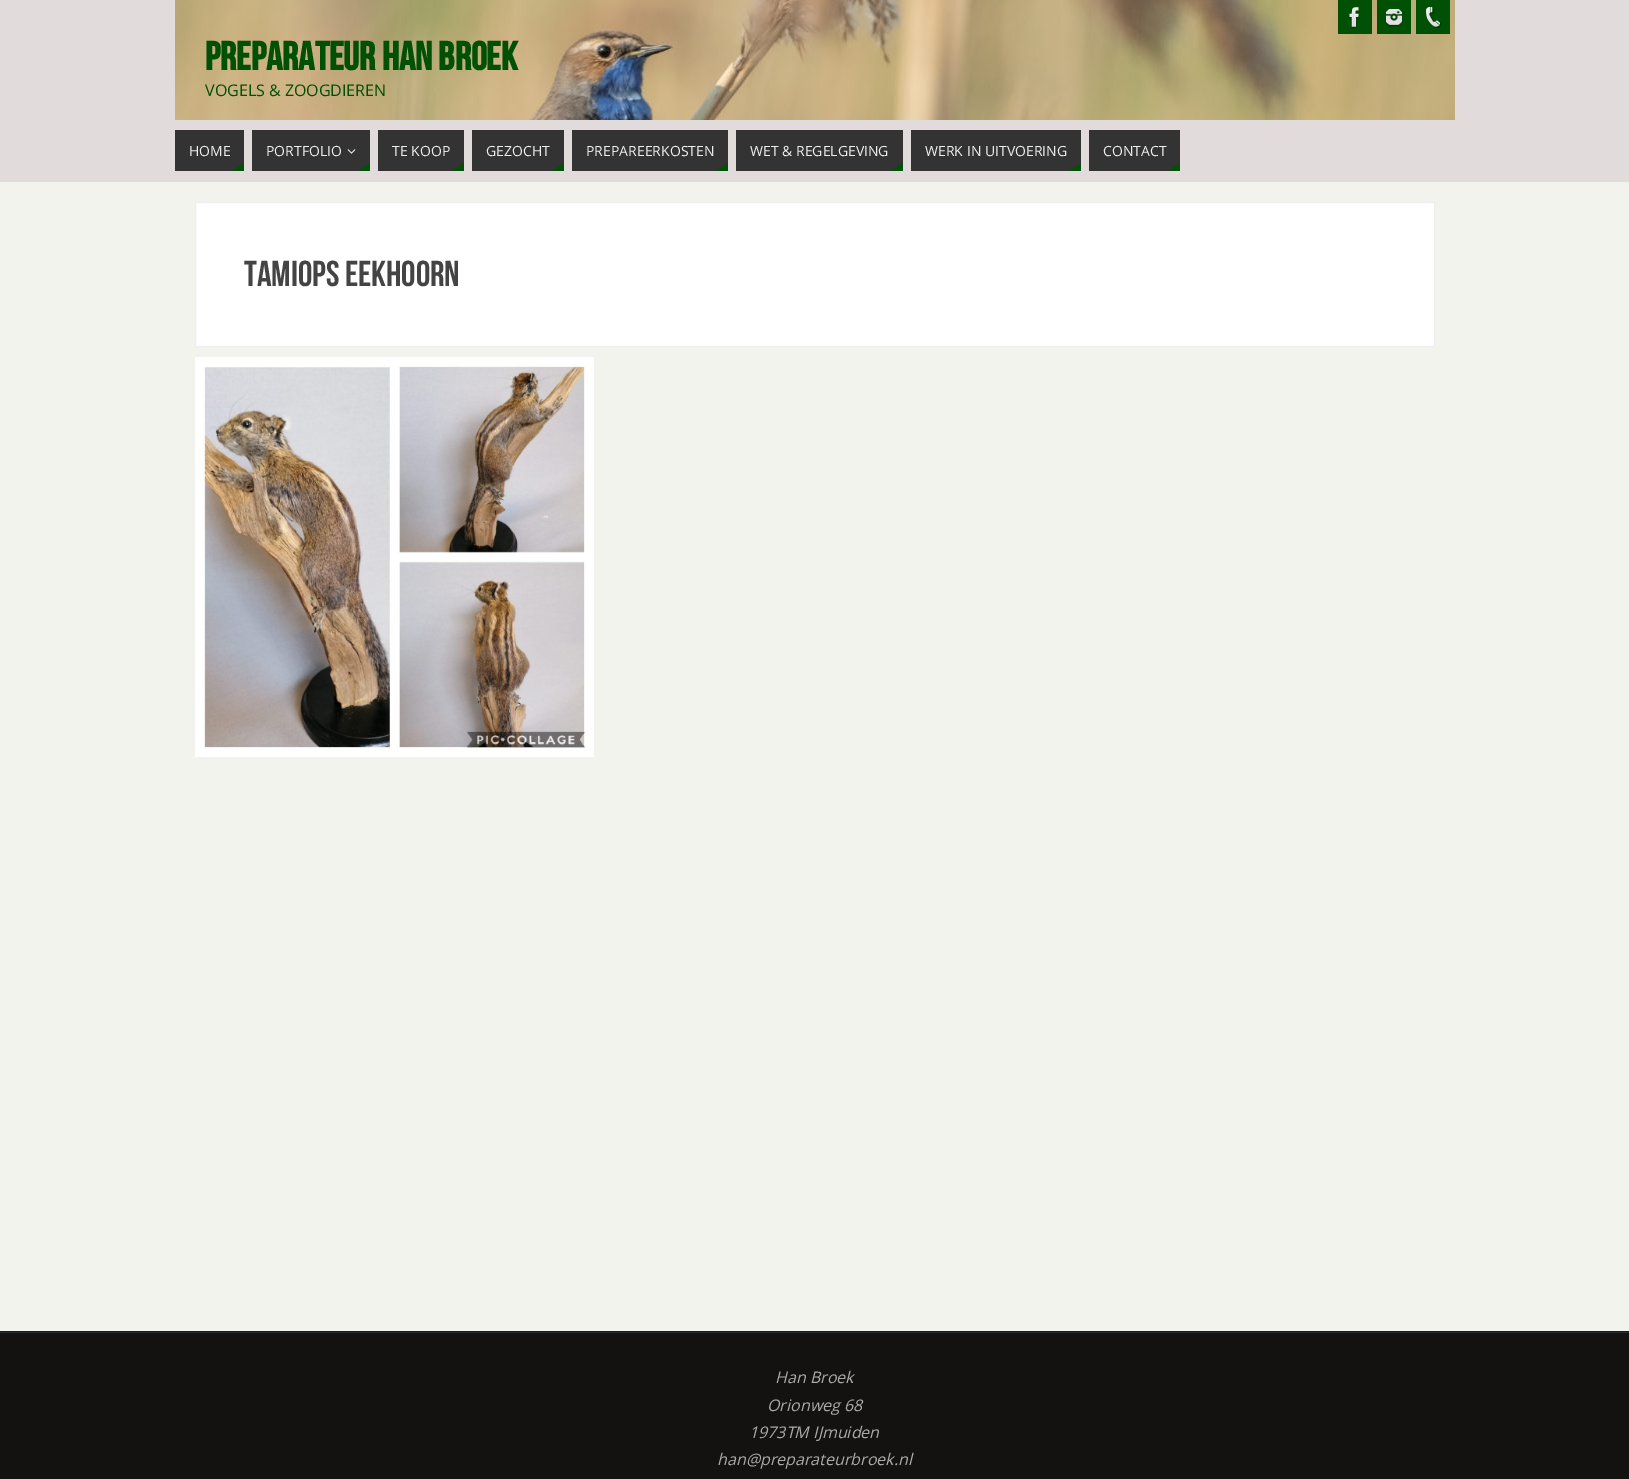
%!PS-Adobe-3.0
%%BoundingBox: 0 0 1629 1479
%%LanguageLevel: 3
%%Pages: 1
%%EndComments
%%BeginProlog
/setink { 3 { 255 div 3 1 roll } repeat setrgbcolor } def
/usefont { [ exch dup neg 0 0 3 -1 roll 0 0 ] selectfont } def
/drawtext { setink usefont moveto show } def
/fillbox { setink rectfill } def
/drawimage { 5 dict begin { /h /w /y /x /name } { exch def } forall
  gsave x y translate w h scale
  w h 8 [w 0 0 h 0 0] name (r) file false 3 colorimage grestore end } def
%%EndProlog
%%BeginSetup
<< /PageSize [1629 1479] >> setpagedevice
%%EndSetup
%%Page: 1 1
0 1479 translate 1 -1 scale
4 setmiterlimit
0 0 1629 1479 243 243 238 fillbox
0 0 1629 182 225 219 219 fillbox
(assets/img1.rgb) 175 0 1280 120 drawimage
1338 0 34 34 0 80 5 fillbox
(assets/img2.rgb) 1348 7 11 22 drawimage
1377 0 34 34 0 80 5 fillbox
(assets/img3.rgb) 1385 9 18 18 drawimage
1416 0 34 34 0 80 5 fillbox
(assets/img4.rgb) 1426 7 16 22 drawimage
(PREPARATEUR HAN BROEK) 205 70 /BebasNeue-Bold 40 0 80 5 drawtext
(VOGELS & ZOOGDIEREN) 205 96 /OpenSans-Regular 16 0 80 5 drawtext
175 130 69 41 51 51 51 fillbox
(HOME) 189 156 /OpenSans-Regular 14 238 238 238 drawtext
0 80 5 setink
244 171 moveto 232 171 lineto 244 163 lineto closepath fill
252 130 118 41 51 51 51 fillbox
(PORTFOLIO) 266 156 /OpenSans-Regular 14 238 238 238 drawtext
(assets/img5.rgb) 347 149 9 5 drawimage
0 80 5 setink
370 171 moveto 358 171 lineto 370 163 lineto closepath fill
378 130 86 41 51 51 51 fillbox
(TE KOOP) 392 156 /OpenSans-Regular 14 238 238 238 drawtext
0 80 5 setink
464 171 moveto 452 171 lineto 464 163 lineto closepath fill
472 130 92 41 51 51 51 fillbox
(GEZOCHT) 486 156 /OpenSans-Regular 14 238 238 238 drawtext
0 80 5 setink
564 171 moveto 552 171 lineto 564 163 lineto closepath fill
572 130 156 41 51 51 51 fillbox
(PREPAREERKOSTEN) 586 156 /OpenSans-Regular 14 238 238 238 drawtext
0 80 5 setink
728 171 moveto 716 171 lineto 728 163 lineto closepath fill
736 130 167 41 51 51 51 fillbox
(WET & REGELGEVING) 750 156 /OpenSans-Regular 14 238 238 238 drawtext
0 80 5 setink
903 171 moveto 891 171 lineto 903 163 lineto closepath fill
911 130 170 41 51 51 51 fillbox
(WERK IN UITVOERING) 925 156 /OpenSans-Regular 14 238 238 238 drawtext
0 80 5 setink
1081 171 moveto 1069 171 lineto 1081 163 lineto closepath fill
1089 130 91 41 51 51 51 fillbox
(CONTACT) 1103 156 /OpenSans-Regular 14 238 238 238 drawtext
0 80 5 setink
1180 171 moveto 1168 171 lineto 1180 163 lineto closepath fill
255 255 255 setink
195.5 202.5 moveto 1434.5 202.5 lineto 1434.5 346.5 lineto 195.5 346.5 lineto closepath gsave fill grestore
238 238 238 setink
stroke
(Tamiops eekhoorn) 244 286 /BebasNeue-Regular 36 68 68 68 drawtext
(assets/img6.rgb) 195 357 399 400 drawimage
0 1331 1629 1 26 25 23 fillbox
0 1333 1629 146 19 18 17 fillbox
0 1332 1629 1 43 42 41 fillbox
(Han Broek) 775 1383 /OpenSans-Italic 16 170 170 170 drawtext
(Orionweg 68) 767 1411 /OpenSans-Italic 16 170 170 170 drawtext
(1973TM IJmuiden) 749 1438 /OpenSans-Italic 16 170 170 170 drawtext
(han@preparateurbroek.nl) 717 1465 /OpenSans-Italic 16 170 170 170 drawtext
showpage
%%EOF
